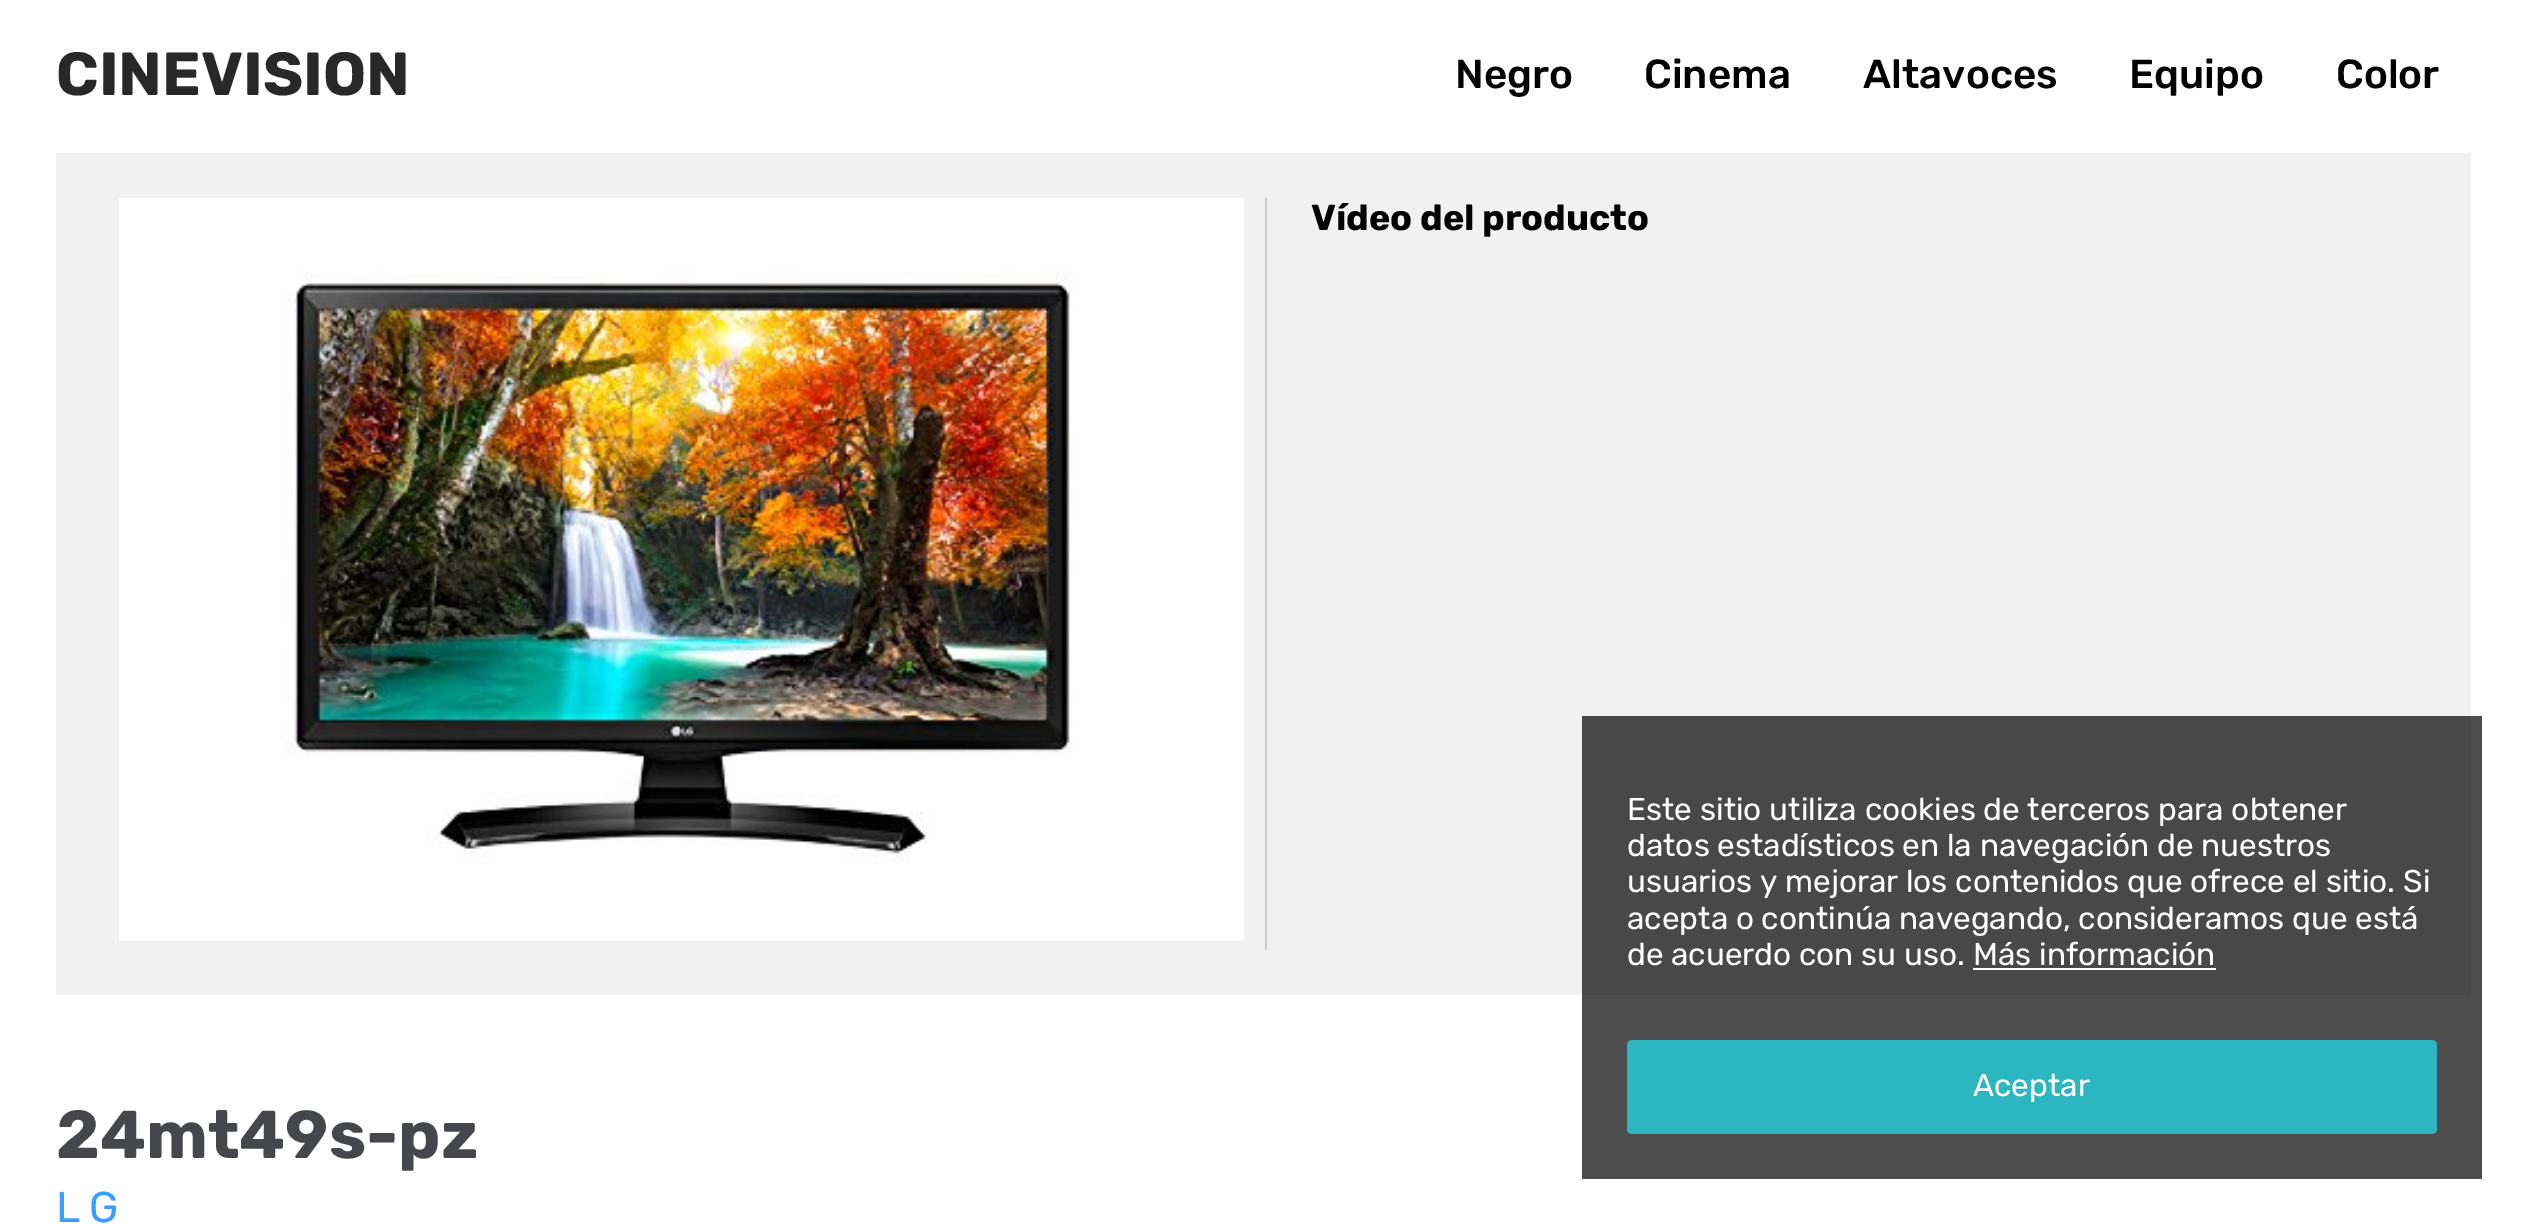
%!PS-Adobe-3.0
%%BoundingBox: 0 0 2525 1224
%%LanguageLevel: 3
%%Pages: 1
%%EndComments
%%BeginProlog
/setink { 3 { 255 div 3 1 roll } repeat setrgbcolor } def
/usefont { [ exch dup neg 0 0 3 -1 roll 0 0 ] selectfont } def
/drawtext { setink usefont moveto show } def
/fillbox { setink rectfill } def
/rrect { 5 dict begin { /r /h /w /y /x } { exch def } forall
  x r add y moveto x w add y 2 copy h add r arct x w add y h add x 1 index r arct
  x y h add x y r arct x y 2 copy exch w add exch r arct closepath end } def
/drawimage { 5 dict begin { /h /w /y /x /name } { exch def } forall
  gsave x y translate w h scale
  w h 8 [w 0 0 h 0 0] name (r) file false 3 colorimage grestore end } def
%%EndProlog
%%BeginSetup
<< /PageSize [2525 1224] >> setpagedevice
%%EndSetup
%%Page: 1 1
0 1224 translate 1 -1 scale
4 setmiterlimit
0 0 2525 1224 255 255 255 fillbox
1582 716 900 463 77 77 77 fillbox
(CINEVISION) 56 95 /Rubik-Bold 60.75 40 40 40 drawtext
(Negro) 1455 88 /Rubik-Medium 40.5 0 0 0 drawtext
(Cinema) 1644 88 /Rubik-Medium 40.5 0 0 0 drawtext
(Altavoces) 1863 88 /Rubik-Medium 40.5 0 0 0 drawtext
(Equipo) 2129 88 /Rubik-Medium 40.5 0 0 0 drawtext
(Color) 2336 88 /Rubik-Medium 40.5 0 0 0 drawtext
56 153 2415 842 241 241 241 fillbox
1582 716 889 279 72 72 72 fillbox
(assets/img1.rgb) 119 198 1125 743 drawimage
1265 198 2 752 205 205 205 fillbox
(Vídeo del producto) 1311 230 /Rubik-Bold 36 0 0 0 drawtext
(24mt49s-pz) 56 1158 /Rubik-Bold 67.5 70 71 75 drawtext
/Rubik-Regular 43 usefont
55 159 255 setink
56 1222 moveto 9 0 (LG) ashow
(Este sitio utiliza cookies de terceros para obtener) 1627 820 /Rubik-Regular 31.5 255 255 255 drawtext
(datos estadísticos en la navegación de nuestros) 1627 856 /Rubik-Regular 31.5 255 255 255 drawtext
(usuarios y mejorar los contenidos que ofrece el sitio. Si) 1627 892 /Rubik-Regular 31.5 255 255 255 drawtext
(acepta o continúa navegando, consideramos que está) 1627 929 /Rubik-Regular 31.5 255 255 255 drawtext
(de acuerdo con su uso. Más información) 1627 965 /Rubik-Regular 31.5 255 255 255 drawtext
1973 968 243 2 255 255 255 fillbox
44 182 191 setink
1627 1040 810 94 5 rrect fill
(Aceptar) 1973 1096 /Rubik-Regular 31.5 255 255 255 drawtext
showpage
%%EOF
